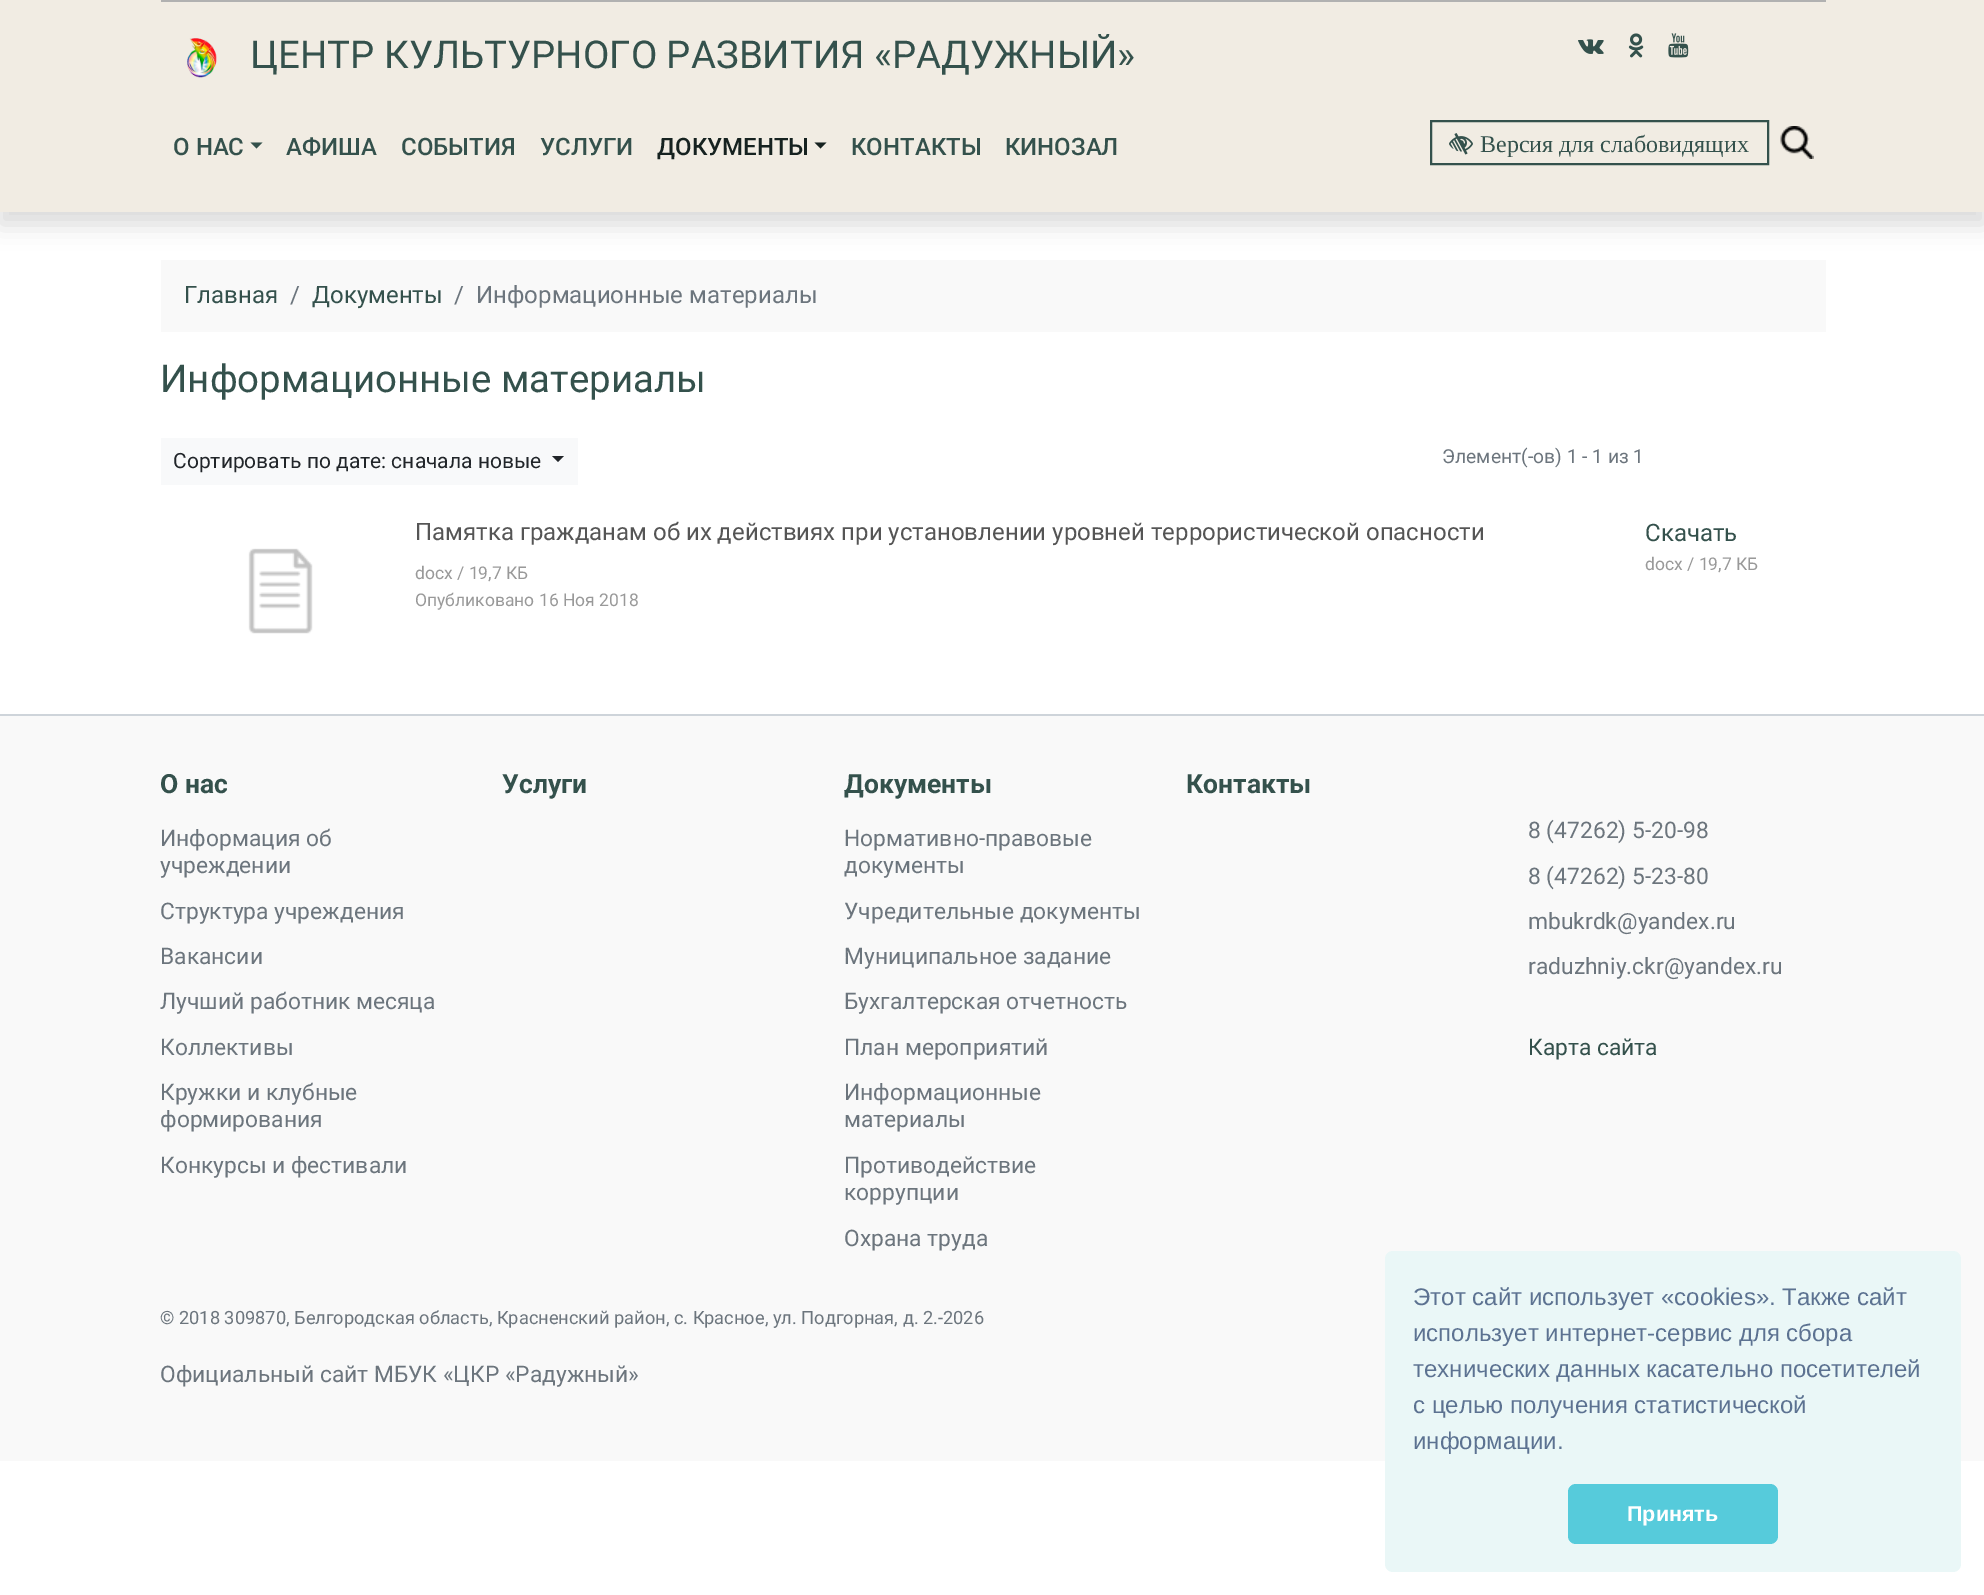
%!PS-Adobe-3.0
%%BoundingBox: 0 0 1984 1595
%%LanguageLevel: 3
%%Pages: 1
%%EndComments
%%BeginProlog
/setink { 3 { 255 div 3 1 roll } repeat setrgbcolor } def
/usefont { [ exch dup neg 0 0 3 -1 roll 0 0 ] selectfont } def
/drawtext { setink usefont moveto show } def
/fillbox { setink rectfill } def
/setalpha { dup .setfillconstantalpha .setstrokeconstantalpha } def
/rrect { 5 dict begin { /r /h /w /y /x } { exch def } forall
  x r add y moveto x w add y 2 copy h add r arct x w add y h add x 1 index r arct
  x y h add x y r arct x y 2 copy exch w add exch r arct closepath end } def
/softshadow { 12 dict begin { /a /b /q /h /w /y /x } { exch def } forall gsave /was 0 def
  9 -2 -9 { dup b mul 4 div /e exch def 1 sub .425 mul 2.718 exch exp 1 add a .99 .min exch div /now exch def
    1 1 now sub 1 was sub div sub setalpha /was now def
    w h .min e 2 mul add 0 gt { x e sub y e sub w e 2 mul add h e 2 mul add
      q e add b .6 mul add w h .min 2 div e add .min 0 .max rrect fill } if } for grestore end } def
/drawimage { 5 dict begin { /h /w /y /x /name } { exch def } forall
  gsave x y translate w h scale
  w h 8 [w 0 0 h 0 0] name (r) file false 3 colorimage grestore end } def
%%EndProlog
%%BeginSetup
<< /PageSize [1984 1595] /PageUsesTransparency true >> setpagedevice
%%EndSetup
%%Page: 1 1
0 .pushpdf14devicefilter
0 1595 translate 1 -1 scale
4 setmiterlimit
0 0 1984 1595 255 255 255 fillbox
161 260 1665 72 249 249 249 fillbox
0 0 0 setink
0 12 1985 212 0 12 0.15 softshadow
0 0 1984 212 241 236 227 fillbox
161 0 1665 2 177 177 177 fillbox
(assets/img1.rgb) 187 38 30 40 drawimage
(ЦЕНТР КУЛЬТУРНОГО РАЗВИТИЯ «РАДУЖНЫЙ») 250 68 /Roboto-Regular 38.4 52 81 76 drawtext
(assets/img2.rgb) 1578 39 26 15 drawimage
(assets/img3.rgb) 1628 33 16 25 drawimage
(assets/img4.rgb) 1668 33 21 25 drawimage
(О НАС) 173 155 /Roboto-Medium 24 52 81 76 drawtext
250.5 142.5 moveto 262.5 142.5 lineto 256.5 148.5 lineto closepath fill
(АФИША) 286 155 /Roboto-Medium 24 52 81 76 drawtext
(СОБЫТИЯ) 401 155 /Roboto-Medium 24 52 81 76 drawtext
(УСЛУГИ) 540 155 /Roboto-Medium 24 52 81 76 drawtext
(ДОКУМЕНТЫ) 657 155 /Roboto-Medium 24 22 34 32 drawtext
814.5 142.5 moveto 826.5 142.5 lineto 820.5 148.5 lineto closepath fill
(КОНТАКТЫ) 851 155 /Roboto-Medium 24 52 81 76 drawtext
(КИНОЗАЛ) 1005 155 /Roboto-Medium 24 52 81 76 drawtext
2 setlinewidth
1431 121 337 43 rectstroke
(assets/img5.rgb) 1449 133 24 22 drawimage
(Версия для слабовидящих) 1480 152 /LiberationSerif-Regular 24 52 81 76 drawtext
(assets/img6.rgb) 1780 126 34 33 drawimage
(Главная) 184 303 /Roboto-Regular 24 52 81 76 drawtext
(/) 290 303 /Roboto-Regular 24 108 117 125 drawtext
(Документы) 312 303 /Roboto-Regular 24 52 81 76 drawtext
(/) 454 303 /Roboto-Regular 24 108 117 125 drawtext
(Информационные материалы) 476 303 /Roboto-Regular 24 108 117 125 drawtext
(Информационные материалы) 160 392 /Roboto-Regular 38.4 52 81 76 drawtext
161 438 417 47 248 249 250 fillbox
(Сортировать по дате: сначала новые) 173 468 /Roboto-Regular 21 33 37 41 drawtext
552 456 moveto 564 456 lineto 558 462 lineto closepath fill
(Элемент\(-ов\) 1 - 1 из 1) 1442 463 /Roboto-Regular 19.25 108 117 125 drawtext
(assets/img7.rgb) 248 548 65 86 drawimage
(Памятка гражданам об их действиях при установлении уровней террористической опасности) 415 540 /Roboto-Regular 24 85 85 85 drawtext
(docx / 19,7 КБ) 415 579 /Roboto-Regular 17.5 153 153 153 drawtext
(Опубликовано 16 Ноя 2018) 415 606 /Roboto-Regular 17.5 153 153 153 drawtext
(Скачать) 1645 541 /Roboto-Regular 24 52 81 76 drawtext
(docx / 19,7 КБ) 1645 570 /Roboto-Regular 17.5 153 153 153 drawtext
0 716 1984 745 249 249 249 fillbox
0 714 1984 2 206 212 218 fillbox
(О нас) 160 793 /Roboto-Bold 26.5 52 81 76 drawtext
(Информация об) 160 846 /Roboto-Regular 22.8 108 117 125 drawtext
(учреждении) 160 873 /Roboto-Regular 22.8 108 117 125 drawtext
(Структура учреждения) 160 919 /Roboto-Regular 22.8 108 117 125 drawtext
(Вакансии) 160 964 /Roboto-Regular 22.8 108 117 125 drawtext
(Лучший работник месяца) 160 1009 /Roboto-Regular 22.8 108 117 125 drawtext
(Коллективы) 160 1055 /Roboto-Regular 22.8 108 117 125 drawtext
(Кружки и клубные) 160 1100 /Roboto-Regular 22.8 108 117 125 drawtext
(формирования) 160 1127 /Roboto-Regular 22.8 108 117 125 drawtext
(Конкурсы и фестивали) 160 1173 /Roboto-Regular 22.8 108 117 125 drawtext
(Услуги) 502 793 /Roboto-Bold 26.5 52 81 76 drawtext
(Документы) 844 793 /Roboto-Bold 26.5 52 81 76 drawtext
(Нормативно-правовые) 844 846 /Roboto-Regular 22.8 108 117 125 drawtext
(документы) 844 873 /Roboto-Regular 22.8 108 117 125 drawtext
(Учредительные документы) 844 919 /Roboto-Regular 22.8 108 117 125 drawtext
(Муниципальное задание) 844 964 /Roboto-Regular 22.8 108 117 125 drawtext
(Бухгалтерская отчетность) 844 1009 /Roboto-Regular 22.8 108 117 125 drawtext
(План мероприятий) 844 1055 /Roboto-Regular 22.8 108 117 125 drawtext
(Информационные) 844 1100 /Roboto-Regular 22.8 108 117 125 drawtext
(материалы) 844 1127 /Roboto-Regular 22.8 108 117 125 drawtext
(Противодействие) 844 1173 /Roboto-Regular 22.8 108 117 125 drawtext
(коррупции) 844 1200 /Roboto-Regular 22.8 108 117 125 drawtext
(Охрана труда) 844 1246 /Roboto-Regular 22.8 108 117 125 drawtext
(Контакты) 1186 793 /Roboto-Bold 26.5 52 81 76 drawtext
(8 \(47262\) 5-20-98) 1528 838 /Roboto-Regular 22.8 108 117 125 drawtext
(8 \(47262\) 5-23-80) 1528 884 /Roboto-Regular 22.8 108 117 125 drawtext
(mbukrdk@yandex.ru) 1528 929 /Roboto-Regular 22.8 108 117 125 drawtext
(raduzhniy.ckr@yandex.ru) 1528 974 /Roboto-Regular 22.8 108 117 125 drawtext
(Карта сайта) 1528 1055 /Roboto-Regular 22.8 52 81 76 drawtext
(© 2018 309870, Белгородская область, Красненский район, с. Красное, ул. Подгорная, д. 2.-2026) 160 1324 /Roboto-Regular 18.25 108 117 125 drawtext
(Официальный сайт МБУК «ЦКР «Радужный») 160 1382 /Roboto-Regular 22.8 108 117 125 drawtext
234 247 247 setink
1385 1251 576 321 8 rrect fill
(Этот сайт использует «cookies». Также сайт) 1413 1305 /LiberationSans-Regular 24 92 114 145 drawtext
(использует интернет-сервис для сбора) 1413 1341 /LiberationSans-Regular 24 92 114 145 drawtext
(технических данных касательно посетителей) 1413 1377 /LiberationSans-Regular 24 92 114 145 drawtext
(с целью получения статистической) 1413 1413 /LiberationSans-Regular 24 92 114 145 drawtext
(информации.) 1413 1449 /LiberationSans-Regular 24 92 114 145 drawtext
86 203 219 setink
1568 1484 210 60 8 rrect fill
(Принять) 1627 1521 /LiberationSans-Bold 21.5 255 255 255 drawtext
.poppdf14devicefilter showpage
%%EOF
